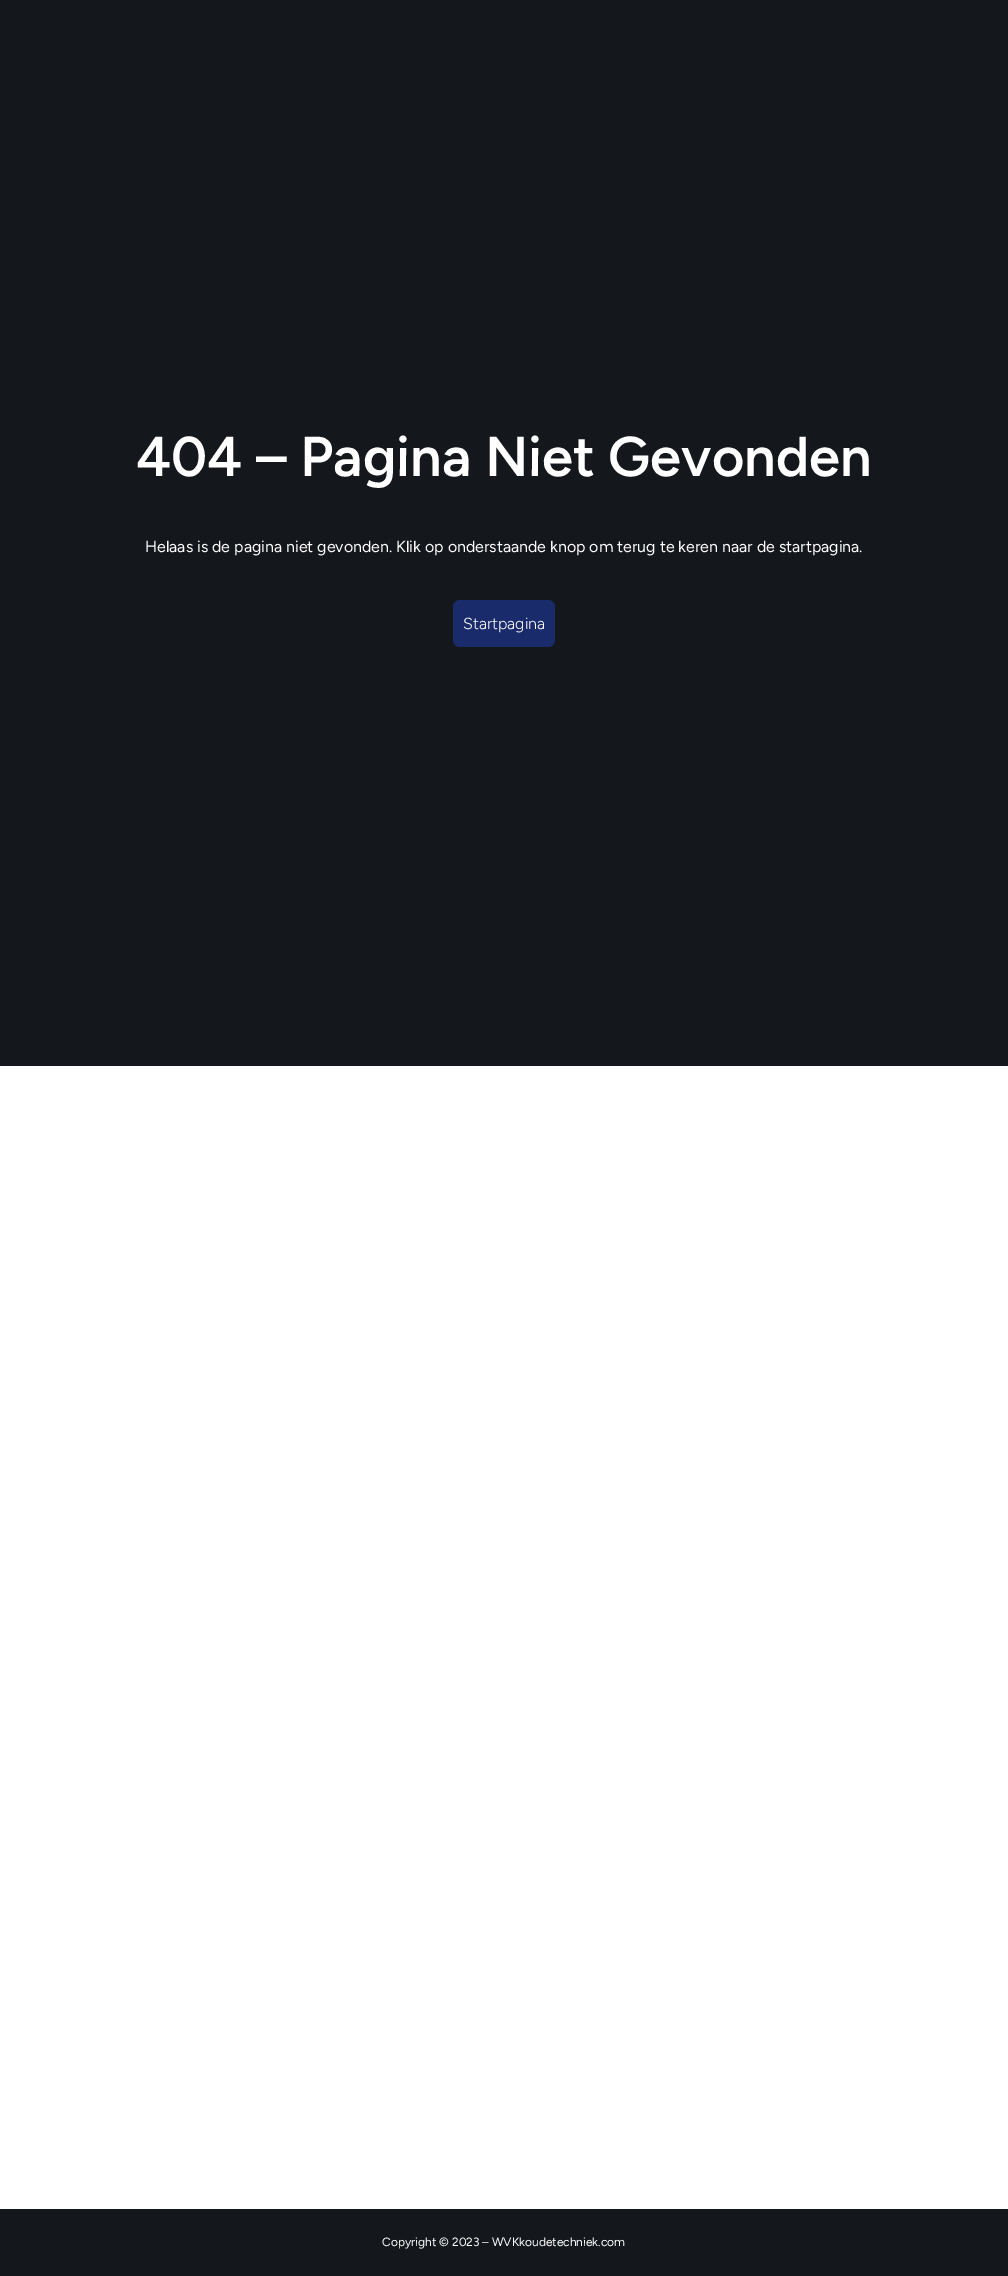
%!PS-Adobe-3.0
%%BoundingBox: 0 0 1008 2276
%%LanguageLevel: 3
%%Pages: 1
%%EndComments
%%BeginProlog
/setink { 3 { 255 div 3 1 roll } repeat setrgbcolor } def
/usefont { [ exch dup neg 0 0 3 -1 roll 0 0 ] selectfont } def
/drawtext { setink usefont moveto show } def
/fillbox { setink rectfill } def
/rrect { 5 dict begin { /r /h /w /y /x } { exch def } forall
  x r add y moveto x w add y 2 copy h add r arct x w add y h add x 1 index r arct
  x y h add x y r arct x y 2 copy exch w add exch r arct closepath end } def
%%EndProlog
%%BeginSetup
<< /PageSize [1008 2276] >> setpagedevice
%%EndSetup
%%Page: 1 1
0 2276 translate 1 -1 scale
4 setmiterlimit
0 0 1008 2276 255 255 255 fillbox
0 0 1008 1066 20 23 28 fillbox
(404 – Pagina Niet Gevonden) 136 476 /Figtree-SemiBold 56 255 255 255 drawtext
(Helaas is de pagina niet gevonden. Klik op onderstaande knop om terug te keren naar de startpagina.) 145 552 /Figtree-Regular 16 255 255 255 drawtext
25 43 107 setink
453 600 102 47 7 rrect fill
(Startpagina) 463 629 /Figtree-Light 16 255 255 255 drawtext
0 2209 1008 67 20 23 28 fillbox
(Copyright © 2023 – WVKkoudetechniek.com) 382 2246 /Figtree-Regular 12 255 255 255 drawtext
showpage
%%EOF
